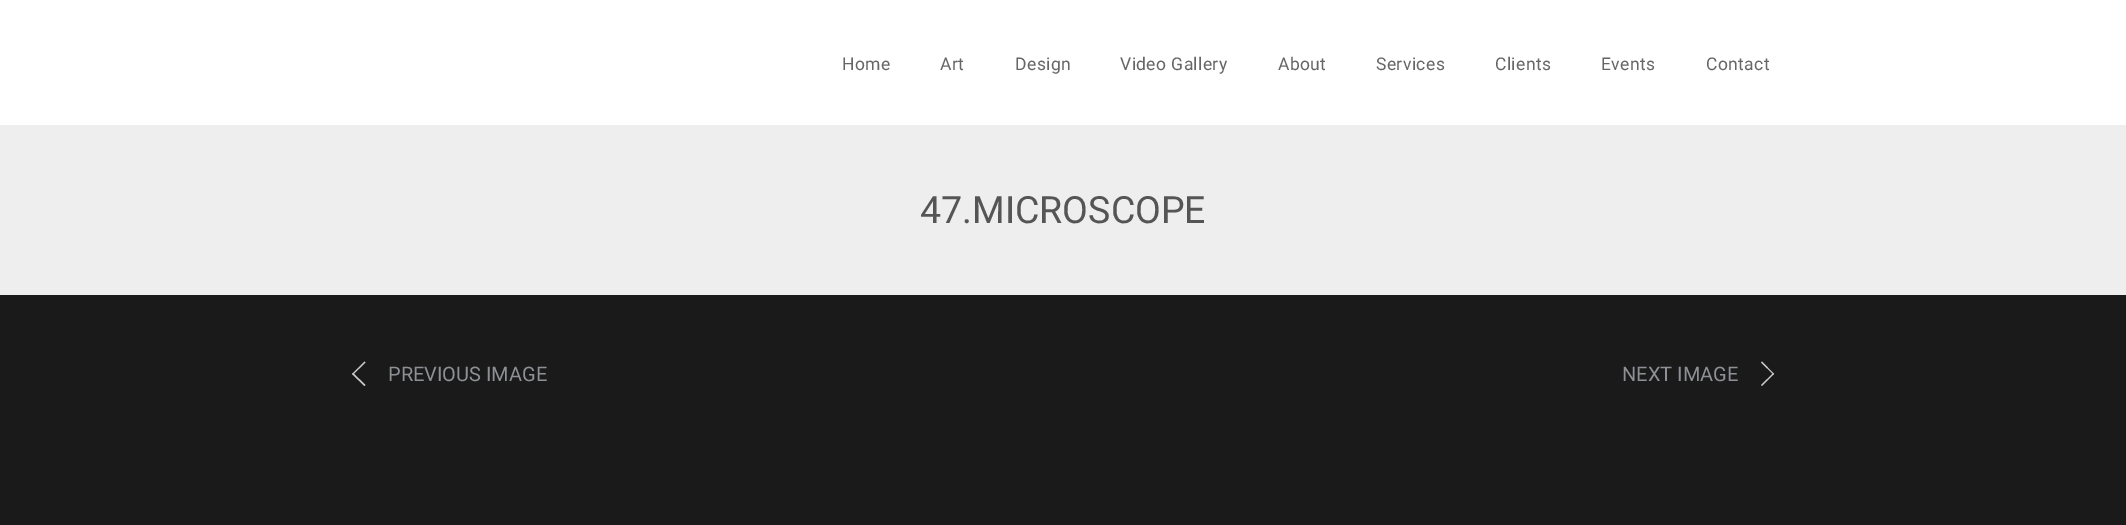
%!PS-Adobe-3.0
%%BoundingBox: 0 0 2126 525
%%LanguageLevel: 3
%%Pages: 1
%%EndComments
%%BeginProlog
/setink { 3 { 255 div 3 1 roll } repeat setrgbcolor } def
/usefont { [ exch dup neg 0 0 3 -1 roll 0 0 ] selectfont } def
/drawtext { setink usefont moveto show } def
/fillbox { setink rectfill } def
%%EndProlog
%%BeginSetup
<< /PageSize [2126 525] >> setpagedevice
%%EndSetup
%%Page: 1 1
0 525 translate 1 -1 scale
4 setmiterlimit
0 0 2126 525 255 255 255 fillbox
/Roboto-Regular 17.5 usefont
102 102 102 setink
842 70 moveto 0.4 0 (Home) ashow
940 70 moveto 0.4 0 (Art) ashow
1015 70 moveto 0.4 0 (Design) ashow
1120 70 moveto 0.4 0 (Video Gallery) ashow
1278 70 moveto 0.4 0 (About) ashow
1376 70 moveto 0.4 0 (Services) ashow
1495 70 moveto 0.4 0 (Clients) ashow
1601 70 moveto 0.4 0 (Events) ashow
1706 70 moveto 0.4 0 (Contact) ashow
0 125 2126 170 238 238 238 fillbox
(47.MICROSCOPE) 920 223 /Roboto-Regular 37.5 85 85 85 drawtext
0 295 2126 230 26 26 26 fillbox
202 202 201 setink
352 374 moveto 364.5 361.5 lineto 365.5 362.5 lineto 353 374.5 lineto closepath fill
352 374 moveto 353 373 lineto 365.5 385 lineto 364.5 386 lineto closepath fill
(PREVIOUS IMAGE) 388 381 /Roboto-Regular 20 142 144 149 drawtext
(NEXT IMAGE) 1622 381 /Roboto-Regular 20 142 144 149 drawtext
202 202 201 setink
1774 374 moveto 1762 386 lineto 1761 385 lineto 1773.5 373 lineto closepath fill
1774 374 moveto 1773.5 374.5 lineto 1761 362.5 lineto 1762 361.5 lineto closepath fill
showpage
%%EOF
